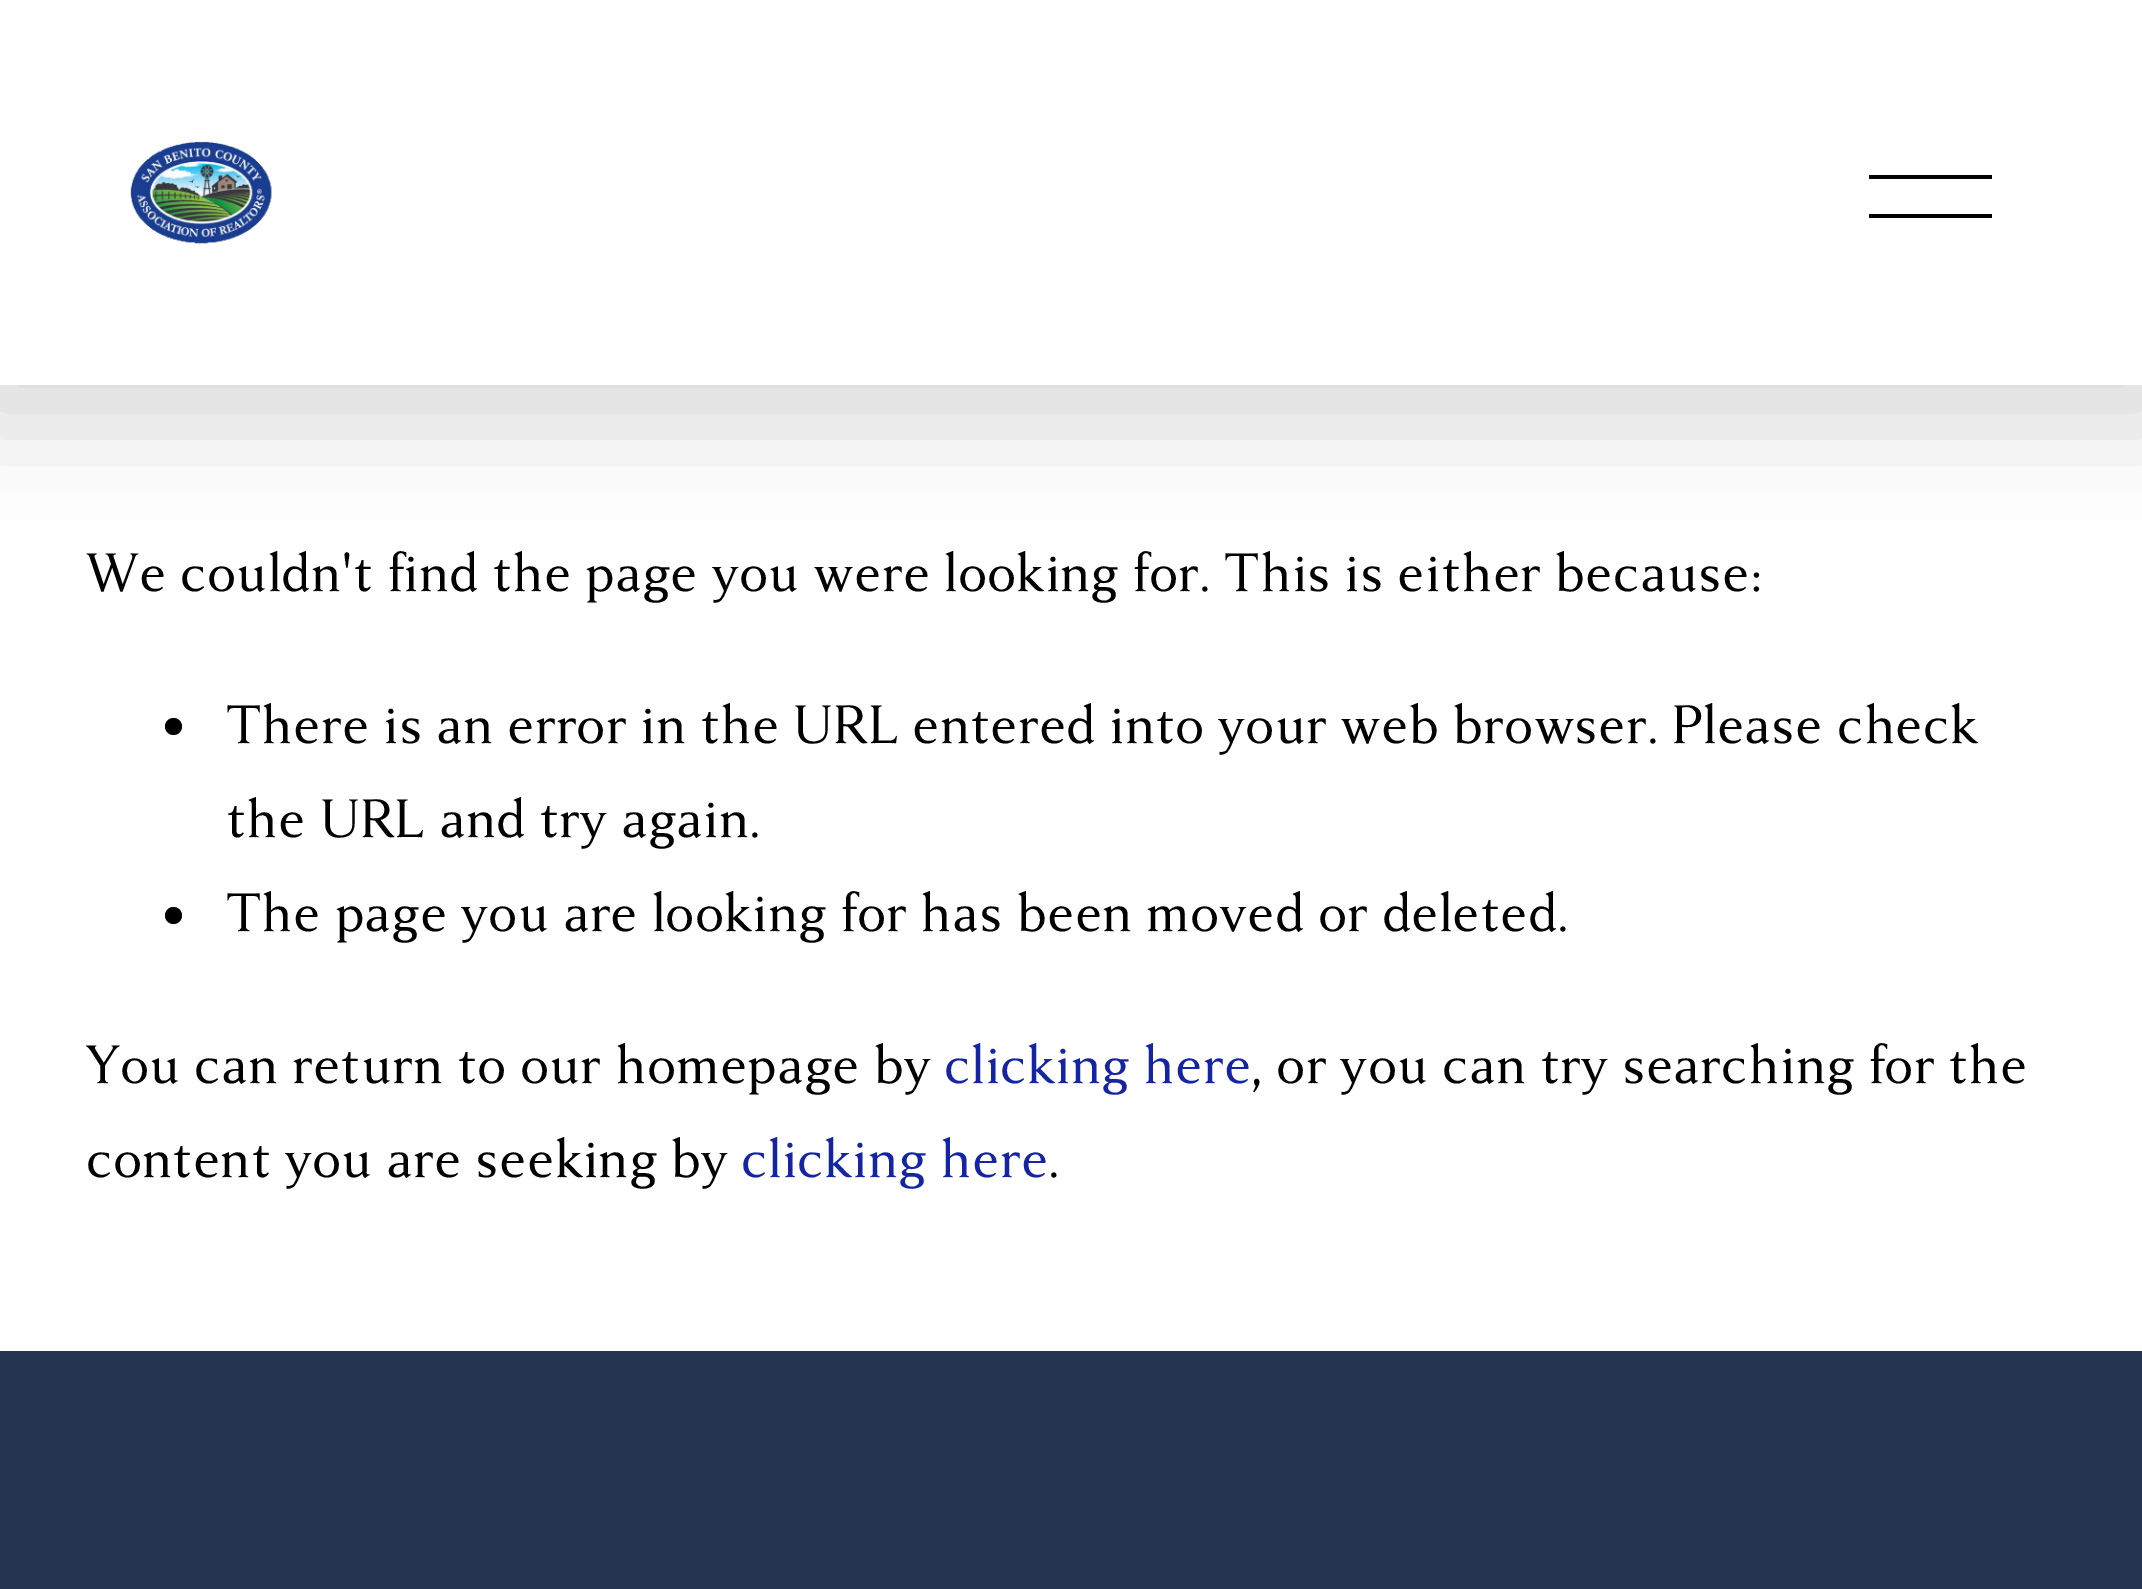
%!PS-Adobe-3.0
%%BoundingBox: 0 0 2142 1589
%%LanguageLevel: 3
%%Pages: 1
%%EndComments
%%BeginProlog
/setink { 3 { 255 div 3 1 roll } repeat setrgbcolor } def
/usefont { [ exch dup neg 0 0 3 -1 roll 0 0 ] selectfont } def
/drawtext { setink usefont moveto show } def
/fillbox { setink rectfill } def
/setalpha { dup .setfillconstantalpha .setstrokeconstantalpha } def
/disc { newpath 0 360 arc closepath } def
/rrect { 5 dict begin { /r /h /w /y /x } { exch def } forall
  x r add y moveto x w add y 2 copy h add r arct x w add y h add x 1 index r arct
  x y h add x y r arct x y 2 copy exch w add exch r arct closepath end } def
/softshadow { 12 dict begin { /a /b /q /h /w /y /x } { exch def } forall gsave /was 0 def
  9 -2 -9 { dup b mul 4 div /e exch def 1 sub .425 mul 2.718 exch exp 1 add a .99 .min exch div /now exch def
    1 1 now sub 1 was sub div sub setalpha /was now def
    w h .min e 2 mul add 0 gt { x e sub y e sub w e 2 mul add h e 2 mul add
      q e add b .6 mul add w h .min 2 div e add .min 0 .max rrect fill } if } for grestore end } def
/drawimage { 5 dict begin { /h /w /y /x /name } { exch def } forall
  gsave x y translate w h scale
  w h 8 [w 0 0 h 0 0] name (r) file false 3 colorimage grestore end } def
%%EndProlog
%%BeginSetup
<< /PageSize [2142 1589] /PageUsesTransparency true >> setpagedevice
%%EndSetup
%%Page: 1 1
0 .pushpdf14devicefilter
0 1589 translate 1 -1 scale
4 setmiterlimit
0 0 2142 1589 255 255 255 fillbox
gsave
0 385 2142 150 rectclip
217 217 217 setink
-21 0 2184 427 0 52.5 1 softshadow
grestore
(assets/img1.rgb) 130 141 142 103 drawimage
1869 175 123 4 0 0 0 fillbox
1869 214 123 4 0 0 0 fillbox
/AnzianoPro-Regular 58.6 usefont
86 591 moveto -0.1 0 32 (We couldn't find the page you were looking for. This is either because:) widthshow
173.5 726.5 8.5 disc fill
226 743 moveto -0.1 0 32 (There is an error in the URL entered into your web browser. Please check) widthshow
(the URL and try again.) 226 837 /AnzianoPro-Regular 58.6 0 0 0 drawtext
173.5 915.5 8.5 disc fill
226 931 moveto -0.1 0 32 (The page you are looking for has been moved or deleted.) widthshow
(You can return to our homepage by) 86 1083 /AnzianoPro-Regular 58.6 0 0 0 drawtext
(clicking here) 944 1083 /AnzianoPro-Regular 58.6 21 36 163 drawtext
(, or you can try searching for the) 1251 1083 /AnzianoPro-Regular 58.6 0 0 0 drawtext
(content you are seeking by) 86 1177 /AnzianoPro-Regular 58.6 0 0 0 drawtext
(clicking here) 741 1177 /AnzianoPro-Regular 58.6 21 36 163 drawtext
(.) 1048 1177 /AnzianoPro-Regular 58.6 0 0 0 drawtext
0 1351 2142 238 37 53 81 fillbox
.poppdf14devicefilter showpage
%%EOF
